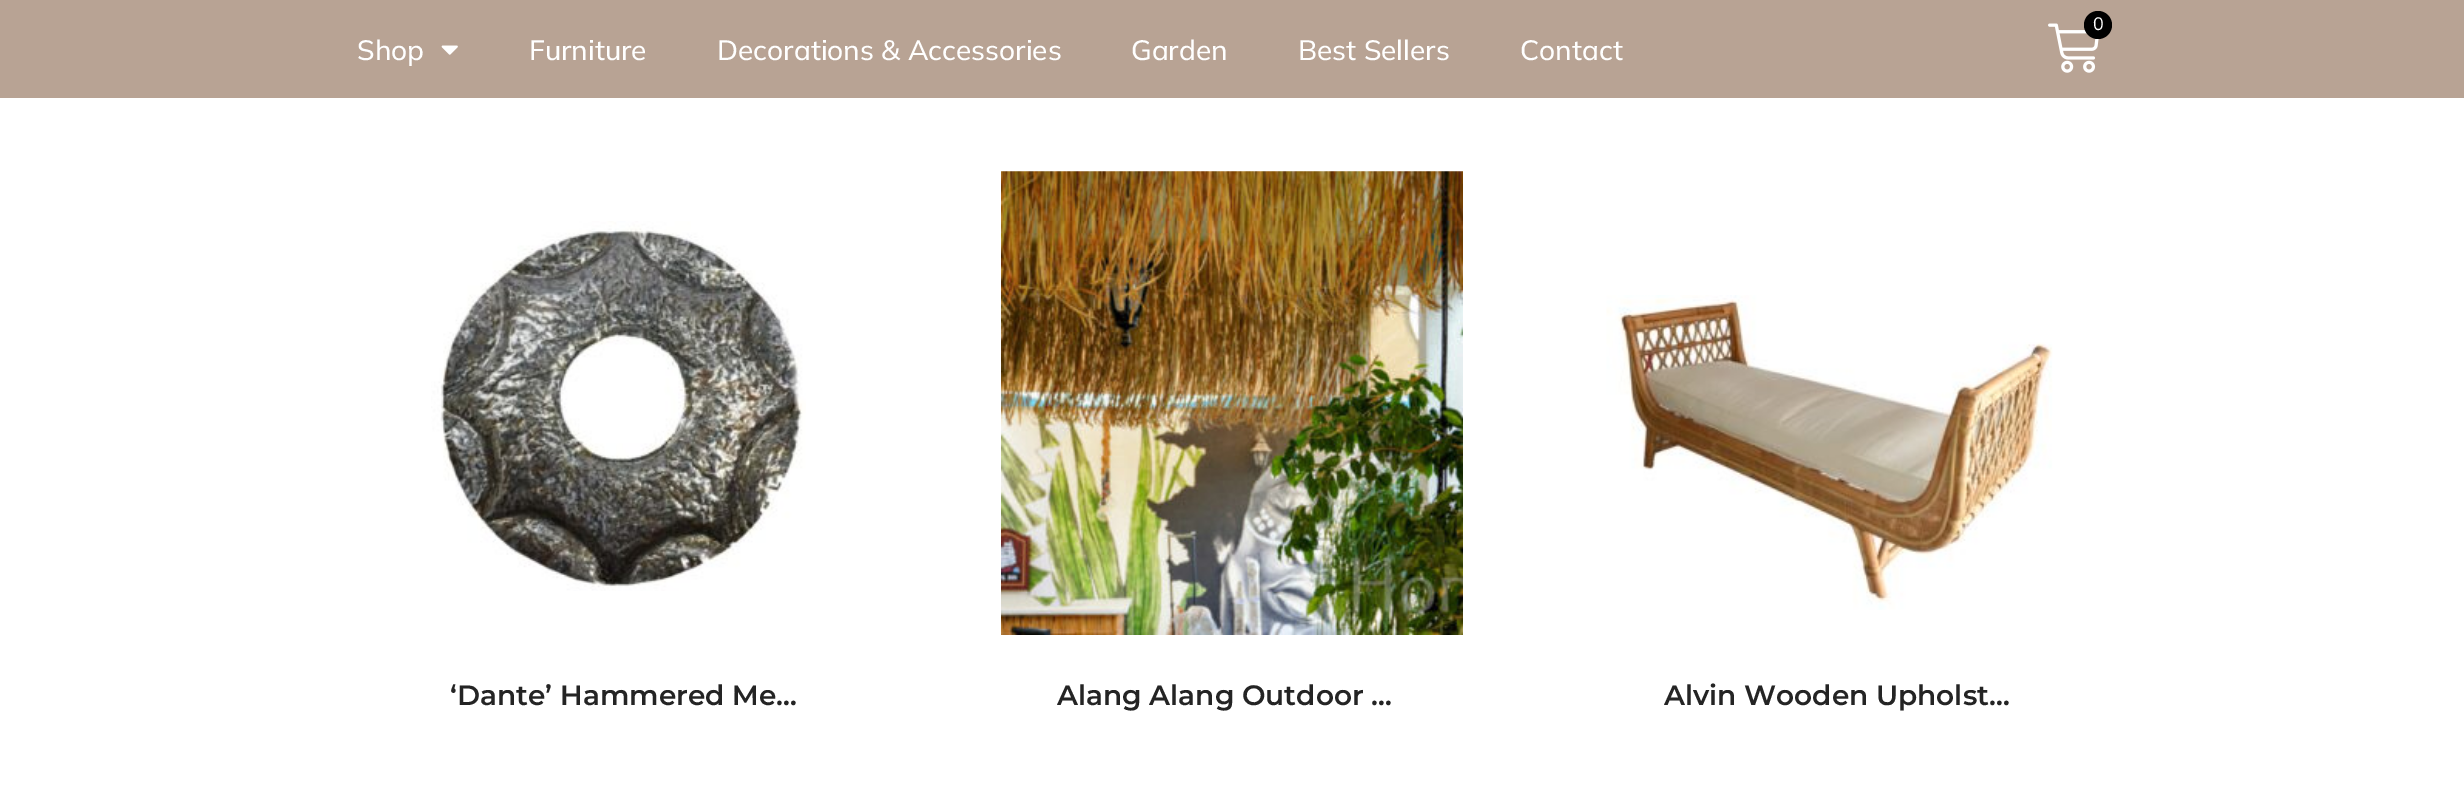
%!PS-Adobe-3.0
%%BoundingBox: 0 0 2464 786
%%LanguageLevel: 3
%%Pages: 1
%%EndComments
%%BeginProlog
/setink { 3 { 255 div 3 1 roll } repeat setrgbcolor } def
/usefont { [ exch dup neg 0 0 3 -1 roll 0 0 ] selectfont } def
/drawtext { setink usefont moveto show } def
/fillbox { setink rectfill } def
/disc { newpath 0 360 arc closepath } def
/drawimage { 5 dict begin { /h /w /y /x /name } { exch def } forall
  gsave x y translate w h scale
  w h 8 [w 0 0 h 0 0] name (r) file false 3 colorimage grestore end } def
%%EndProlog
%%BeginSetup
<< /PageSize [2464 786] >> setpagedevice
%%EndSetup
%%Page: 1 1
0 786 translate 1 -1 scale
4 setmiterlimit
0 0 2464 786 255 255 255 fillbox
0 0 2464 98 184 163 148 fillbox
(assets/img1.rgb) 2048 23 51 50 drawimage
0 0 0 setink
2098 25 14 disc fill
(0) 2093 30 /Mulish-Regular 18 255 255 255 drawtext
(Shop) 357 60 /Mulish-Medium 28 255 255 255 drawtext
(assets/img2.rgb) 441 45 17 10 drawimage
(Furniture) 529 60 /Mulish-Medium 28 255 255 255 drawtext
(Decorations & Accessories) 717 60 /Mulish-Medium 28 255 255 255 drawtext
(Garden) 1131 60 /Mulish-Medium 28 255 255 255 drawtext
(Best Sellers) 1298 60 /Mulish-Medium 28 255 255 255 drawtext
(Contact) 1520 60 /Mulish-Medium 28 255 255 255 drawtext
(assets/img3.rgb) 431 221 375 370 drawimage
(‘Dante’ Hammered Me…) 450 705 /Montserrat-SemiBold 28 36 36 36 drawtext
(assets/img4.rgb) 1001 171 462 464 drawimage
(Alang Alang Outdoor …) 1057 705 /Montserrat-SemiBold 28 36 36 36 drawtext
(assets/img5.rgb) 1606 295 447 315 drawimage
(Alvin Wooden Upholst…) 1664 705 /Montserrat-SemiBold 28 36 36 36 drawtext
showpage
%%EOF
